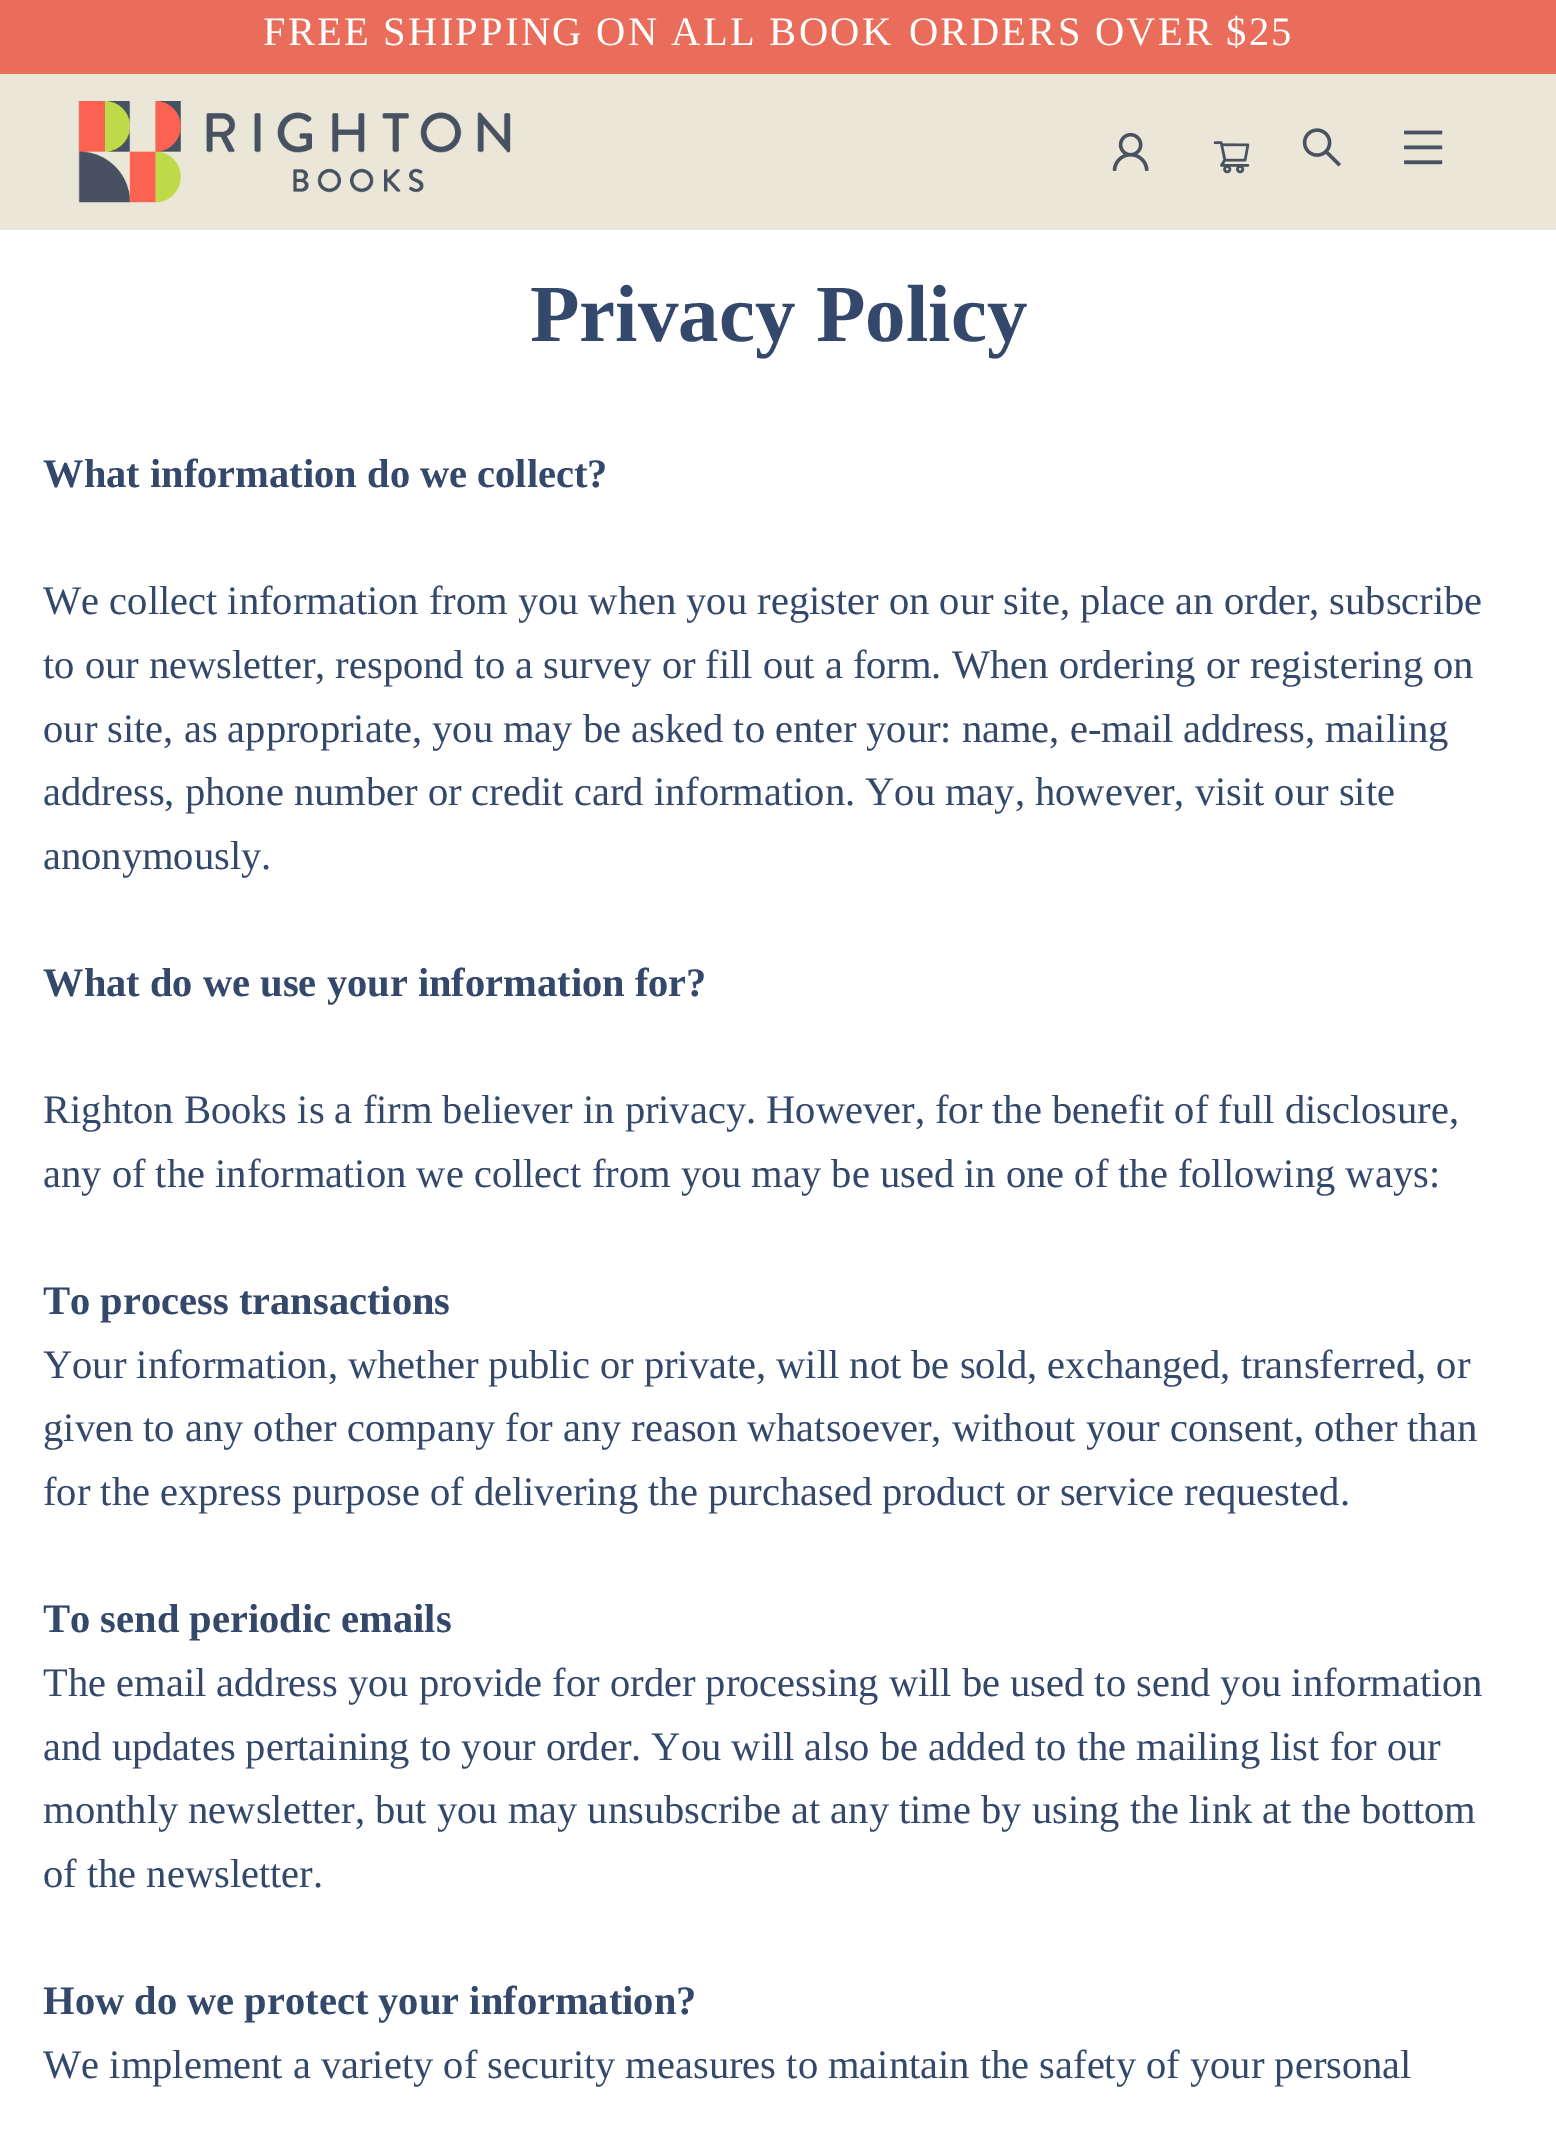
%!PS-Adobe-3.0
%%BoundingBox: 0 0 1556 2132
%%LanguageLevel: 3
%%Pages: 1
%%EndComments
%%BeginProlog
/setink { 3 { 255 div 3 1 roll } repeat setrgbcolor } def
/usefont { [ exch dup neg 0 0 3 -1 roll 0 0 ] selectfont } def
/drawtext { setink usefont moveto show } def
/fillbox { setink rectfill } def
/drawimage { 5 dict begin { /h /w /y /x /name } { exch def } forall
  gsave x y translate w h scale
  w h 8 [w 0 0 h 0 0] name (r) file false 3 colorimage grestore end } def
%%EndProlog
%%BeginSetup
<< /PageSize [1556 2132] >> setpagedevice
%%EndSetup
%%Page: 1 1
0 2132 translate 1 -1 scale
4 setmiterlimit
0 0 1556 2132 255 255 255 fillbox
0 0 1556 74 234 108 90 fillbox
/LiberationSerif-Regular 40.5 usefont
255 255 255 setink
263 45 moveto 2.25 0 (FREE SHIPPING ON ALL BOOK) ashow
909 45 moveto 2.25 0 (ORDERS OVER $25) ashow
0 74 1556 156 234 231 217 fillbox
(assets/img1.rgb) 78 101 433 102 drawimage
(assets/img2.rgb) 1112 132 37 39 drawimage
(assets/img3.rgb) 1213 141 37 33 drawimage
(assets/img4.rgb) 1302 128 39 39 drawimage
(assets/img5.rgb) 1404 130 39 35 drawimage
(Privacy Policy) 530 341 /LiberationSerif-Bold 81 52 72 107 drawtext
(What information do we collect?) 43 487 /LiberationSerif-Bold 40.5 52 72 107 drawtext
(We collect information from you when you register on our site, place an order, subscribe) 43 614 /LiberationSerif-Regular 40.5 52 72 107 drawtext
(to our newsletter, respond to a survey or fill out a form. When ordering or registering on) 43 678 /LiberationSerif-Regular 40.5 52 72 107 drawtext
(our site, as appropriate, you may be asked to enter your: name, e-mail address, mailing) 43 742 /LiberationSerif-Regular 40.5 52 72 107 drawtext
(address, phone number or credit card information. You may, however, visit our site) 43 805 /LiberationSerif-Regular 40.5 52 72 107 drawtext
(anonymously.) 43 869 /LiberationSerif-Regular 40.5 52 72 107 drawtext
(What do we use your information for?) 43 996 /LiberationSerif-Bold 40.5 52 72 107 drawtext
(Righton Books is a firm believer in privacy. However, for the benefit of full disclosure,) 43 1123 /LiberationSerif-Regular 40.5 52 72 107 drawtext
(any of the information we collect from you may be used in one of the following ways:) 43 1187 /LiberationSerif-Regular 40.5 52 72 107 drawtext
(To process transactions) 43 1314 /LiberationSerif-Bold 40.5 52 72 107 drawtext
(Your information, whether public or private, will not be sold, exchanged, transferred, or) 43 1378 /LiberationSerif-Regular 40.5 52 72 107 drawtext
(given to any other company for any reason whatsoever, without your consent, other than) 43 1441 /LiberationSerif-Regular 40.5 52 72 107 drawtext
(for the express purpose of delivering the purchased product or service requested.) 43 1505 /LiberationSerif-Regular 40.5 52 72 107 drawtext
(To send periodic emails) 43 1632 /LiberationSerif-Bold 40.5 52 72 107 drawtext
(The email address you provide for order processing will be used to send you information) 43 1696 /LiberationSerif-Regular 40.5 52 72 107 drawtext
(and updates pertaining to your order. You will also be added to the mailing list for our) 43 1760 /LiberationSerif-Regular 40.5 52 72 107 drawtext
(monthly newsletter, but you may unsubscribe at any time by using the link at the bottom) 43 1823 /LiberationSerif-Regular 40.5 52 72 107 drawtext
(of the newsletter.) 43 1887 /LiberationSerif-Regular 40.5 52 72 107 drawtext
(How do we protect your information?) 43 2014 /LiberationSerif-Bold 40.5 52 72 107 drawtext
(We implement a variety of security measures to maintain the safety of your personal) 43 2078 /LiberationSerif-Regular 40.5 52 72 107 drawtext
showpage
%%EOF
